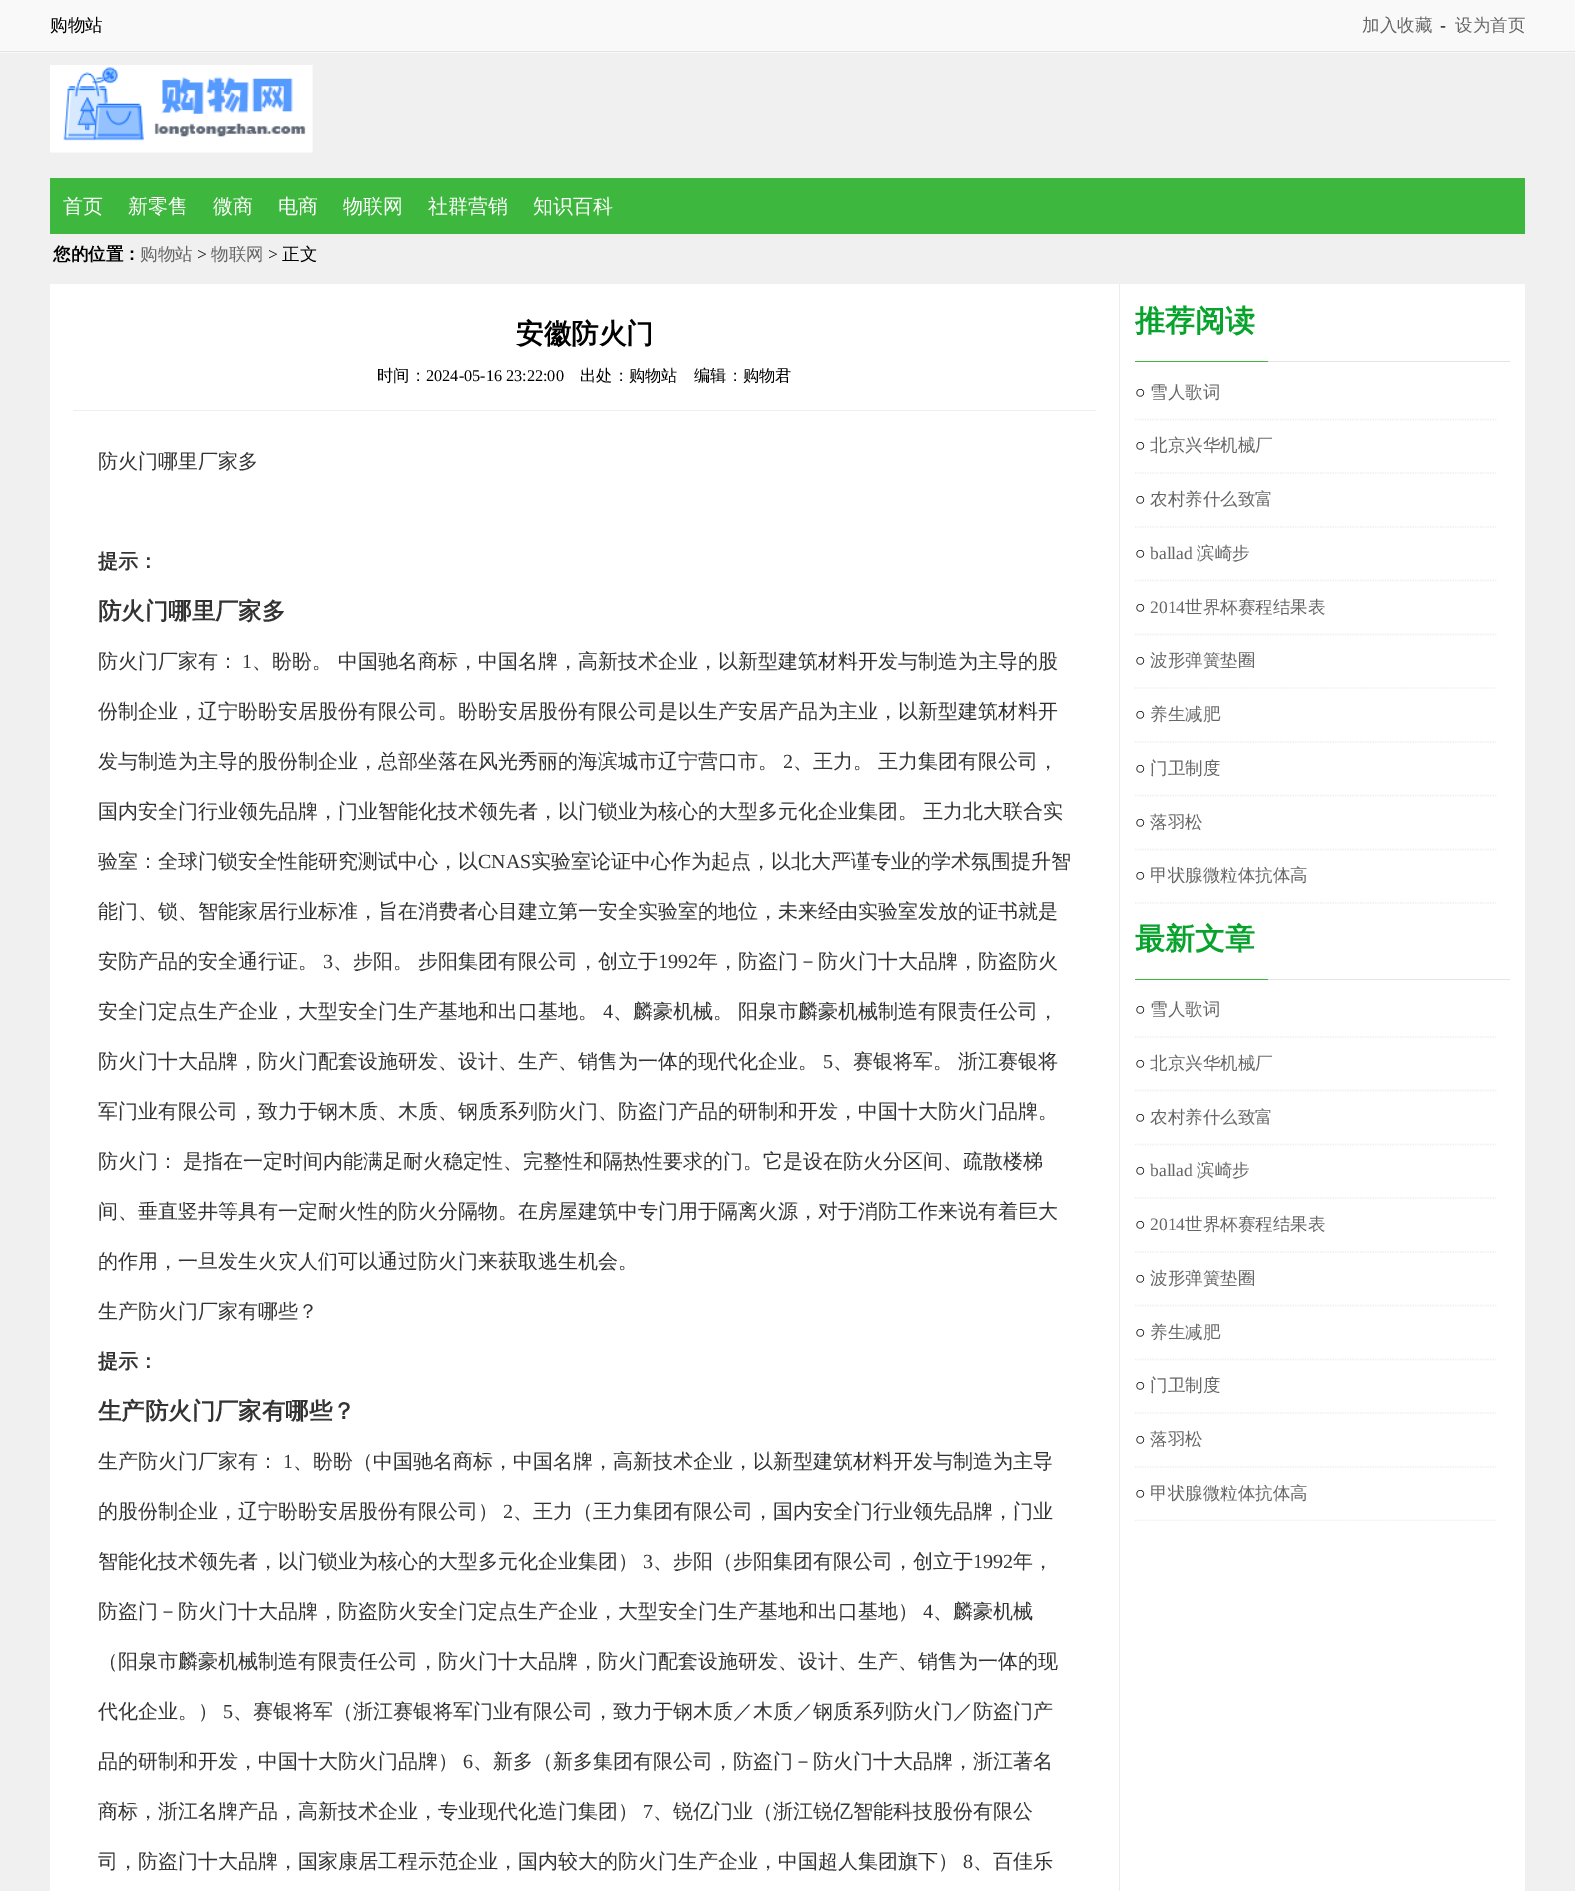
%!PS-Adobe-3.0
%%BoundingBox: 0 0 1575 1891
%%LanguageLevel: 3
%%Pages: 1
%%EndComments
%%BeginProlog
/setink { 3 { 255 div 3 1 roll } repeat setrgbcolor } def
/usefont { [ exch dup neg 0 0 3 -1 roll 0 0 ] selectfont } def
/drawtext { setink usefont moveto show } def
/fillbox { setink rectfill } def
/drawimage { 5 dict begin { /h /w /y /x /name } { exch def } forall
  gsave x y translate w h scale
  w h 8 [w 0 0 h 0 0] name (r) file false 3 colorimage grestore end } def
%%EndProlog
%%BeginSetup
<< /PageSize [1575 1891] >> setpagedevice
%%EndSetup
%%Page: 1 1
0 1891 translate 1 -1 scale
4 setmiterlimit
0 0 1575 1891 240 240 240 fillbox
0 0 1575 53 249 249 249 fillbox
0 51 1575 1 227 227 227 fillbox
(购物站) 50 31 /WenQuanYiZenHei-Medium 17.5 0 0 0 drawtext
(加入收藏) 1362 31 /WenQuanYiZenHei-Medium 17.5 102 102 102 drawtext
(-) 1440 31 /LiberationSerif-Regular 17.5 0 0 0 drawtext
(设为首页) 1455 31 /WenQuanYiZenHei-Medium 17.5 102 102 102 drawtext
(assets/img1.rgb) 50 65 263 88 drawimage
50 178 1475 56 61 183 61 fillbox
(首页) 63 213 /WenQuanYiZenHei-Medium 20 255 255 255 drawtext
(新零售) 128 213 /WenQuanYiZenHei-Medium 20 255 255 255 drawtext
(微商) 213 213 /WenQuanYiZenHei-Medium 20 255 255 255 drawtext
(电商) 278 213 /WenQuanYiZenHei-Medium 20 255 255 255 drawtext
(物联网) 343 213 /WenQuanYiZenHei-Medium 20 255 255 255 drawtext
(社群营销) 428 213 /WenQuanYiZenHei-Medium 20 255 255 255 drawtext
(知识百科) 533 213 /WenQuanYiZenHei-Medium 20 255 255 255 drawtext
(您的位置：) 53 260 /WenQuanYiZenHei-Bold 17.5 0 0 0 drawtext
(购物站) 140 260 /WenQuanYiZenHei-Medium 17.5 102 102 102 drawtext
(>) 197 260 /LiberationSerif-Regular 17.5 0 0 0 drawtext
(物联网) 211 260 /WenQuanYiZenHei-Medium 17.5 102 102 102 drawtext
(>) 268 260 /LiberationSerif-Regular 17.5 0 0 0 drawtext
(正文) 282 260 /WenQuanYiZenHei-Medium 17.5 0 0 0 drawtext
1120 284 405 1607 255 255 255 fillbox
(assets/img2.rgb) 1119 284 1 1607 drawimage
50 284 1069 1607 255 255 255 fillbox
73 410 1023 1 238 238 238 fillbox
(安徽防火门) 516 343 /WenQuanYiZenHei-Bold 27.5 0 0 0 drawtext
(时间：) 377 381 /WenQuanYiZenHei-Medium 16.25 0 0 0 drawtext
(2024-05-16 23:22:00) 426 381 /LiberationSerif-Regular 16.25 0 0 0 drawtext
(出处：购物站) 580 381 /WenQuanYiZenHei-Medium 16.25 0 0 0 drawtext
(编辑：购物君) 694 381 /WenQuanYiZenHei-Medium 16.25 0 0 0 drawtext
(防火门哪里厂家多) 98 468 /WenQuanYiZenHei-Medium 20 51 51 51 drawtext
(提示：) 98 568 /WenQuanYiZenHei-Bold 20 51 51 51 drawtext
(防火门哪里厂家多) 98 619 /WenQuanYiZenHei-Bold 23.4 51 51 51 drawtext
(防火门厂家有：) 98 668 /WenQuanYiZenHei-Medium 20 51 51 51 drawtext
(1) 242 668 /LiberationSerif-Regular 20 51 51 51 drawtext
(、盼盼。 中国驰名商标，中国名牌，高新技术企业，以新型建筑材料开发与制造为主导的股) 252 668 /WenQuanYiZenHei-Medium 20 51 51 51 drawtext
(份制企业，辽宁盼盼安居股份有限公司。盼盼安居股份有限公司是以生产安居产品为主业，以新型建筑材料开) 98 718 /WenQuanYiZenHei-Medium 20 51 51 51 drawtext
(发与制造为主导的股份制企业，总部坐落在风光秀丽的海滨城市辽宁营口市。) 98 768 /WenQuanYiZenHei-Medium 20 51 51 51 drawtext
(2) 783 768 /LiberationSerif-Regular 20 51 51 51 drawtext
/WenQuanYiZenHei-Medium 20 usefont
793 768 moveto -1 0 32 (、王力。 王力集团有限公司，) widthshow
98 818 moveto -1 0 32 (国内安全门行业领先品牌，门业智能化技术领先者，以门锁业为核心的大型多元化企业集团。 王力北大联合实) widthshow
(验室：全球门锁安全性能研究测试中心，以) 98 868 /WenQuanYiZenHei-Medium 20 51 51 51 drawtext
(CNAS) 478 868 /LiberationSerif-Regular 20 51 51 51 drawtext
(实验室论证中心作为起点，以北大严谨专业的学术氛围提升智) 531 868 /WenQuanYiZenHei-Medium 20 51 51 51 drawtext
(能门、锁、智能家居行业标准，旨在消费者心目建立第一安全实验室的地位，未来经由实验室发放的证书就是) 98 918 /WenQuanYiZenHei-Medium 20 51 51 51 drawtext
(安防产品的安全通行证。) 98 968 /WenQuanYiZenHei-Medium 20 51 51 51 drawtext
(3) 323 968 /LiberationSerif-Regular 20 51 51 51 drawtext
/WenQuanYiZenHei-Medium 20 usefont
333 968 moveto -1 0 32 (、步阳。 步阳集团有限公司，创立于) widthshow
(1992) 658 968 /LiberationSerif-Regular 20 51 51 51 drawtext
(年，防盗门－防火门十大品牌，防盗防火) 698 968 /WenQuanYiZenHei-Medium 20 51 51 51 drawtext
(安全门定点生产企业，大型安全门生产基地和出口基地。) 98 1018 /WenQuanYiZenHei-Medium 20 51 51 51 drawtext
(4) 603 1018 /LiberationSerif-Regular 20 51 51 51 drawtext
/WenQuanYiZenHei-Medium 20 usefont
613 1018 moveto -1 0 32 (、麟豪机械。 阳泉市麟豪机械制造有限责任公司，) widthshow
(防火门十大品牌，防火门配套设施研发、设计、生产、销售为一体的现代化企业。) 98 1068 /WenQuanYiZenHei-Medium 20 51 51 51 drawtext
(5) 823 1068 /LiberationSerif-Regular 20 51 51 51 drawtext
/WenQuanYiZenHei-Medium 20 usefont
833 1068 moveto -1 0 32 (、赛银将军。 浙江赛银将) widthshow
(军门业有限公司，致力于钢木质、木质、钢质系列防火门、防盗门产品的研制和开发，中国十大防火门品牌。) 98 1118 /WenQuanYiZenHei-Medium 20 51 51 51 drawtext
98 1168 moveto -1 0 32 (防火门： 是指在一定时间内能满足耐火稳定性、完整性和隔热性要求的门。它是设在防火分区间、疏散楼梯) widthshow
(间、垂直竖井等具有一定耐火性的防火分隔物。在房屋建筑中专门用于隔离火源，对于消防工作来说有着巨大) 98 1218 /WenQuanYiZenHei-Medium 20 51 51 51 drawtext
(的作用，一旦发生火灾人们可以通过防火门来获取逃生机会。) 98 1268 /WenQuanYiZenHei-Medium 20 51 51 51 drawtext
(生产防火门厂家有哪些？) 98 1318 /WenQuanYiZenHei-Medium 20 51 51 51 drawtext
(提示：) 98 1368 /WenQuanYiZenHei-Bold 20 51 51 51 drawtext
(生产防火门厂家有哪些？) 98 1419 /WenQuanYiZenHei-Bold 23.4 51 51 51 drawtext
(生产防火门厂家有：) 98 1468 /WenQuanYiZenHei-Medium 20 51 51 51 drawtext
(1) 283 1468 /LiberationSerif-Regular 20 51 51 51 drawtext
(、盼盼（中国驰名商标，中国名牌，高新技术企业，以新型建筑材料开发与制造为主导) 293 1468 /WenQuanYiZenHei-Medium 20 51 51 51 drawtext
(的股份制企业，辽宁盼盼安居股份有限公司）) 98 1518 /WenQuanYiZenHei-Medium 20 51 51 51 drawtext
(2) 503 1518 /LiberationSerif-Regular 20 51 51 51 drawtext
(、王力（王力集团有限公司，国内安全门行业领先品牌，门业) 513 1518 /WenQuanYiZenHei-Medium 20 51 51 51 drawtext
(智能化技术领先者，以门锁业为核心的大型多元化企业集团）) 98 1568 /WenQuanYiZenHei-Medium 20 51 51 51 drawtext
(3) 643 1568 /LiberationSerif-Regular 20 51 51 51 drawtext
(、步阳（步阳集团有限公司，创立于) 653 1568 /WenQuanYiZenHei-Medium 20 51 51 51 drawtext
(1992) 973 1568 /LiberationSerif-Regular 20 51 51 51 drawtext
(年，) 1013 1568 /WenQuanYiZenHei-Medium 20 51 51 51 drawtext
(防盗门－防火门十大品牌，防盗防火安全门定点生产企业，大型安全门生产基地和出口基地）) 98 1618 /WenQuanYiZenHei-Medium 20 51 51 51 drawtext
(4) 923 1618 /LiberationSerif-Regular 20 51 51 51 drawtext
(、麟豪机械) 933 1618 /WenQuanYiZenHei-Medium 20 51 51 51 drawtext
(（阳泉市麟豪机械制造有限责任公司，防火门十大品牌，防火门配套设施研发、设计、生产、销售为一体的现) 98 1668 /WenQuanYiZenHei-Medium 20 51 51 51 drawtext
(代化企业。）) 98 1718 /WenQuanYiZenHei-Medium 20 51 51 51 drawtext
(5) 223 1718 /LiberationSerif-Regular 20 51 51 51 drawtext
(、赛银将军（浙江赛银将军门业有限公司，致力于钢木质／木质／钢质系列防火门／防盗门产) 233 1718 /WenQuanYiZenHei-Medium 20 51 51 51 drawtext
(品的研制和开发，中国十大防火门品牌）) 98 1768 /WenQuanYiZenHei-Medium 20 51 51 51 drawtext
(6) 463 1768 /LiberationSerif-Regular 20 51 51 51 drawtext
(、新多（新多集团有限公司，防盗门－防火门十大品牌，浙江著名) 473 1768 /WenQuanYiZenHei-Medium 20 51 51 51 drawtext
(商标，浙江名牌产品，高新技术企业，专业现代化造门集团）) 98 1818 /WenQuanYiZenHei-Medium 20 51 51 51 drawtext
(7) 643 1818 /LiberationSerif-Regular 20 51 51 51 drawtext
(、锐亿门业（浙江锐亿智能科技股份有限公) 653 1818 /WenQuanYiZenHei-Medium 20 51 51 51 drawtext
(司，防盗门十大品牌，国家康居工程示范企业，国内较大的防火门生产企业，中国超人集团旗下）) 98 1868 /WenQuanYiZenHei-Medium 20 51 51 51 drawtext
(8) 963 1868 /LiberationSerif-Regular 20 51 51 51 drawtext
(、百佳乐) 973 1868 /WenQuanYiZenHei-Medium 20 51 51 51 drawtext
1268 361 242 1 229 229 229 fillbox
1135 361 133 1 61 183 61 fillbox
(推荐阅读) 1135 331 /WenQuanYiZenHei-Bold 30 8 163 44 drawtext
238 238 238 setink
1.2 setlinewidth
[1.25 1.25] 0 setdash
1135 419.5 moveto 1497.5 419.5 lineto stroke
(○) 1135 398 /LiberationSerif-Regular 17.5 0 0 0 drawtext
(雪人歌词) 1150 398 /WenQuanYiZenHei-Medium 17.5 102 102 102 drawtext
238 238 238 setink
1135 473 moveto 1497.5 473 lineto stroke
(○) 1135 451 /LiberationSerif-Regular 17.5 0 0 0 drawtext
(北京兴华机械厂) 1150 451 /WenQuanYiZenHei-Medium 17.5 102 102 102 drawtext
238 238 238 setink
1135 527 moveto 1497.5 527 lineto stroke
(○) 1135 505 /LiberationSerif-Regular 17.5 0 0 0 drawtext
(农村养什么致富) 1150 505 /WenQuanYiZenHei-Medium 17.5 102 102 102 drawtext
238 238 238 setink
1135 580.5 moveto 1497.5 580.5 lineto stroke
(○) 1135 559 /LiberationSerif-Regular 17.5 0 0 0 drawtext
(ballad) 1150 559 /LiberationSerif-Regular 17.5 102 102 102 drawtext
(滨崎步) 1197 559 /WenQuanYiZenHei-Medium 17.5 102 102 102 drawtext
238 238 238 setink
1135 634.5 moveto 1497.5 634.5 lineto stroke
(○) 1135 613 /LiberationSerif-Regular 17.5 0 0 0 drawtext
(2014) 1150 613 /LiberationSerif-Regular 17.5 102 102 102 drawtext
(世界杯赛程结果表) 1185 613 /WenQuanYiZenHei-Medium 17.5 102 102 102 drawtext
238 238 238 setink
1135 688 moveto 1497.5 688 lineto stroke
(○) 1135 666 /LiberationSerif-Regular 17.5 0 0 0 drawtext
(波形弹簧垫圈) 1150 666 /WenQuanYiZenHei-Medium 17.5 102 102 102 drawtext
238 238 238 setink
1135 742 moveto 1497.5 742 lineto stroke
(○) 1135 720 /LiberationSerif-Regular 17.5 0 0 0 drawtext
(养生减肥) 1150 720 /WenQuanYiZenHei-Medium 17.5 102 102 102 drawtext
238 238 238 setink
1135 795.5 moveto 1497.5 795.5 lineto stroke
(○) 1135 774 /LiberationSerif-Regular 17.5 0 0 0 drawtext
(门卫制度) 1150 774 /WenQuanYiZenHei-Medium 17.5 102 102 102 drawtext
238 238 238 setink
1135 849.5 moveto 1497.5 849.5 lineto stroke
(○) 1135 828 /LiberationSerif-Regular 17.5 0 0 0 drawtext
(落羽松) 1150 828 /WenQuanYiZenHei-Medium 17.5 102 102 102 drawtext
238 238 238 setink
1135 903 moveto 1497.5 903 lineto stroke
(○) 1135 881 /LiberationSerif-Regular 17.5 0 0 0 drawtext
(甲状腺微粒体抗体高) 1150 881 /WenQuanYiZenHei-Medium 17.5 102 102 102 drawtext
1268 979 242 1 229 229 229 fillbox
1135 979 133 1 61 183 61 fillbox
(最新文章) 1135 949 /WenQuanYiZenHei-Bold 30 8 163 44 drawtext
238 238 238 setink
1135 1037 moveto 1497.5 1037 lineto stroke
(○) 1135 1015 /LiberationSerif-Regular 17.5 0 0 0 drawtext
(雪人歌词) 1150 1015 /WenQuanYiZenHei-Medium 17.5 102 102 102 drawtext
238 238 238 setink
1135 1090.5 moveto 1497.5 1090.5 lineto stroke
(○) 1135 1069 /LiberationSerif-Regular 17.5 0 0 0 drawtext
(北京兴华机械厂) 1150 1069 /WenQuanYiZenHei-Medium 17.5 102 102 102 drawtext
238 238 238 setink
1135 1144.5 moveto 1497.5 1144.5 lineto stroke
(○) 1135 1123 /LiberationSerif-Regular 17.5 0 0 0 drawtext
(农村养什么致富) 1150 1123 /WenQuanYiZenHei-Medium 17.5 102 102 102 drawtext
238 238 238 setink
1135 1198 moveto 1497.5 1198 lineto stroke
(○) 1135 1176 /LiberationSerif-Regular 17.5 0 0 0 drawtext
(ballad) 1150 1176 /LiberationSerif-Regular 17.5 102 102 102 drawtext
(滨崎步) 1197 1176 /WenQuanYiZenHei-Medium 17.5 102 102 102 drawtext
238 238 238 setink
1135 1252 moveto 1497.5 1252 lineto stroke
(○) 1135 1230 /LiberationSerif-Regular 17.5 0 0 0 drawtext
(2014) 1150 1230 /LiberationSerif-Regular 17.5 102 102 102 drawtext
(世界杯赛程结果表) 1185 1230 /WenQuanYiZenHei-Medium 17.5 102 102 102 drawtext
238 238 238 setink
1135 1305.5 moveto 1497.5 1305.5 lineto stroke
(○) 1135 1284 /LiberationSerif-Regular 17.5 0 0 0 drawtext
(波形弹簧垫圈) 1150 1284 /WenQuanYiZenHei-Medium 17.5 102 102 102 drawtext
238 238 238 setink
1135 1359.5 moveto 1497.5 1359.5 lineto stroke
(○) 1135 1338 /LiberationSerif-Regular 17.5 0 0 0 drawtext
(养生减肥) 1150 1338 /WenQuanYiZenHei-Medium 17.5 102 102 102 drawtext
238 238 238 setink
1135 1413 moveto 1497.5 1413 lineto stroke
(○) 1135 1391 /LiberationSerif-Regular 17.5 0 0 0 drawtext
(门卫制度) 1150 1391 /WenQuanYiZenHei-Medium 17.5 102 102 102 drawtext
238 238 238 setink
1135 1467 moveto 1497.5 1467 lineto stroke
(○) 1135 1445 /LiberationSerif-Regular 17.5 0 0 0 drawtext
(落羽松) 1150 1445 /WenQuanYiZenHei-Medium 17.5 102 102 102 drawtext
gsave
1135 980 375 541 rectclip
238 238 238 setink
1135 1520.5 moveto 1497.5 1520.5 lineto stroke
grestore
(○) 1135 1499 /LiberationSerif-Regular 17.5 0 0 0 drawtext
(甲状腺微粒体抗体高) 1150 1499 /WenQuanYiZenHei-Medium 17.5 102 102 102 drawtext
showpage
%%EOF
